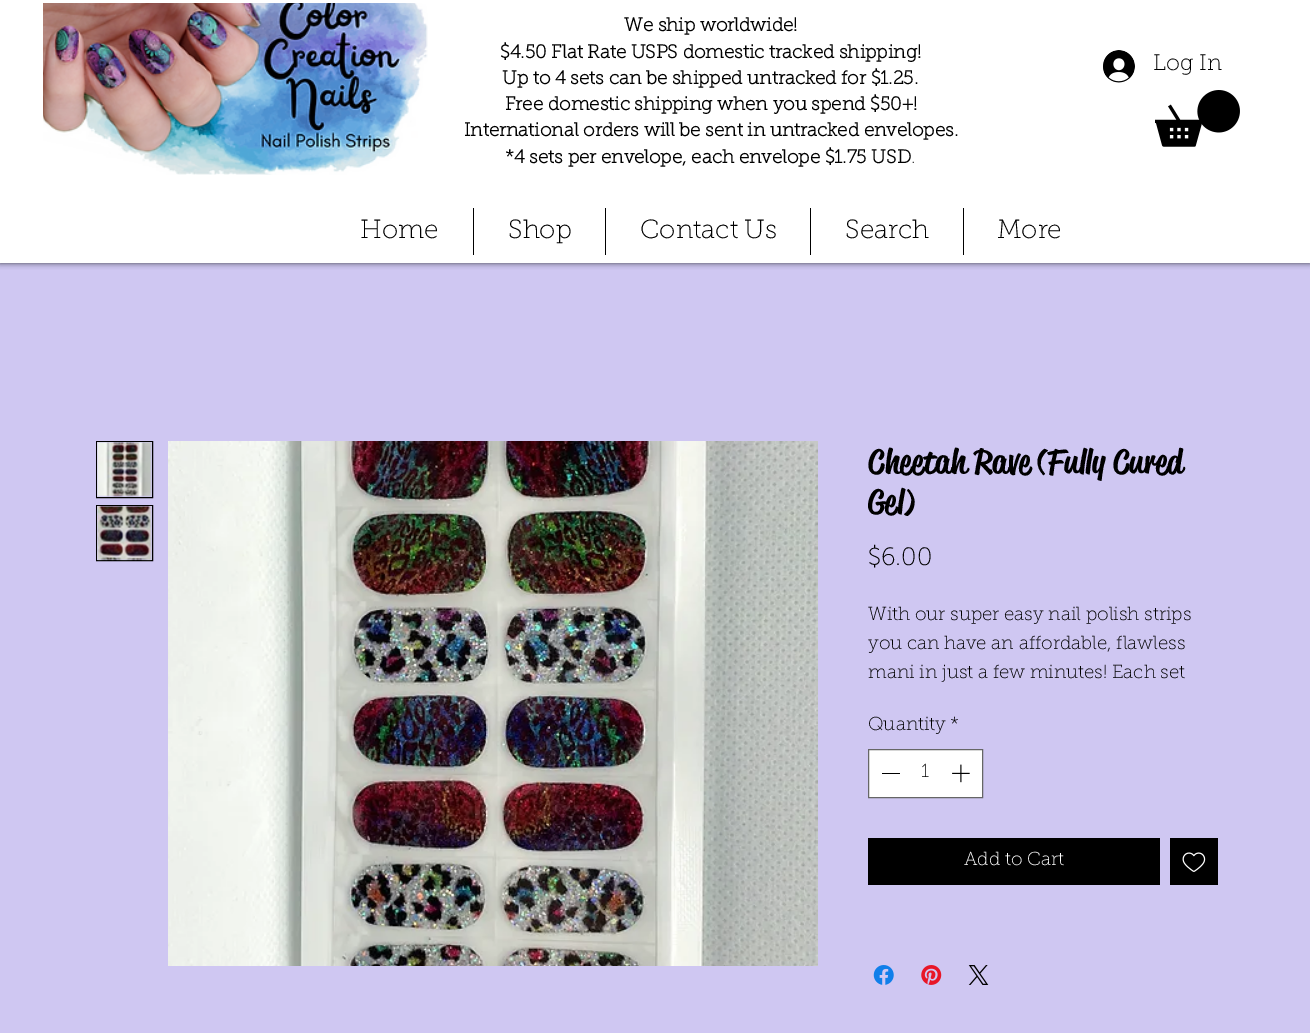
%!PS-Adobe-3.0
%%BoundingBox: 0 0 1310 1033
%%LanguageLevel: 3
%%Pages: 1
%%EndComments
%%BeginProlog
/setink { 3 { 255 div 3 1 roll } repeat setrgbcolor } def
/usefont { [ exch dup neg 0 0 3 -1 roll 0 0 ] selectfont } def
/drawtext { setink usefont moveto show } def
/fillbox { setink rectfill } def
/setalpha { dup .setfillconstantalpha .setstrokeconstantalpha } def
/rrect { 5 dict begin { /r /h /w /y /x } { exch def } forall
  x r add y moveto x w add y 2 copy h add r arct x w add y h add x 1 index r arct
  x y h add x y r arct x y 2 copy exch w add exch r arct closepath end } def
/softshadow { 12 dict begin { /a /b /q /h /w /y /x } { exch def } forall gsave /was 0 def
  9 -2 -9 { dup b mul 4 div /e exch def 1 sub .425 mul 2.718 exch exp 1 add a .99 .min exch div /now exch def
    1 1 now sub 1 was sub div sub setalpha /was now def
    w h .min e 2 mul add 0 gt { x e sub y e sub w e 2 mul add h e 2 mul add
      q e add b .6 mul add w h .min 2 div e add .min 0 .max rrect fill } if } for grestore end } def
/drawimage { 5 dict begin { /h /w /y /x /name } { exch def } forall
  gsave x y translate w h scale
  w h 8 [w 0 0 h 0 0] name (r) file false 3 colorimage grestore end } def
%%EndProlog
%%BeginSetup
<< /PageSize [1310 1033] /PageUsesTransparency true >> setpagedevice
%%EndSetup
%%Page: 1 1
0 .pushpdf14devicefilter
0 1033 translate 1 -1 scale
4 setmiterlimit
0 0 1310 1033 207 199 242 fillbox
0 0 0 setink
0 0 1310 263 0 3 0.7 softshadow
0 0 1310 263 255 255 255 fillbox
(assets/img1.rgb) 43 3 385 172 drawimage
(We ship worldwide!) 624 31 /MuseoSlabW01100-Bold 18.75 0 0 0 drawtext
($4.50 Flat Rate USPS domestic tracked shipping!) 500 58 /MuseoSlabW01100-Bold 18.75 0 0 0 drawtext
(Up to 4 sets can be shipped untracked for $1.25.) 502 84 /MuseoSlabW01100-Bold 18.75 0 0 0 drawtext
(Free domestic shipping when you spend $50+!) 505 110 /MuseoSlabW01100-Bold 18.75 0 0 0 drawtext
(International orders will be sent in untracked envelopes.) 464 136 /MuseoSlabW01100-Bold 18.75 0 0 0 drawtext
(*4 sets per envelope, each envelope $1.75 USD) 505 163 /MuseoSlabW01100-Bold 18.75 0 0 0 drawtext
(.) 911 163 /MuseoSlabW01100-Thin 18.75 0 0 0 drawtext
(assets/img2.rgb) 1103 50 32 33 drawimage
(Log In) 1153 70 /MuseoSlabW01100-Thin 22.5 0 0 0 drawtext
(assets/img3.rgb) 1155 90 85 57 drawimage
(Home) 360 238 /MuseoSlabW01100-Thin 26.25 0 0 0 drawtext
473 208 1 47 0 0 0 fillbox
(Shop) 508 238 /MuseoSlabW01100-Thin 26.25 0 0 0 drawtext
605 208 1 47 0 0 0 fillbox
(Contact Us) 640 238 /MuseoSlabW01100-Thin 26.25 0 0 0 drawtext
810 208 1 47 0 0 0 fillbox
(Search) 845 238 /MuseoSlabW01100-Thin 26.25 0 0 0 drawtext
963 208 1 47 0 0 0 fillbox
(More) 997 238 /MuseoSlabW01100-Thin 26.25 0 0 0 drawtext
96.5 441.5 56 56 rectstroke
(assets/img4.rgb) 97 442 55 55 drawimage
96.5 505.5 56 55 rectstroke
(assets/img5.rgb) 97 505 55 56 drawimage
(assets/img6.rgb) 168 441 650 525 drawimage
(Cheetah Rave \(Fully Cured) 868 473 /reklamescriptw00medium-Medium 33.75 0 0 0 drawtext
(Gel\)) 868 513 /reklamescriptw00medium-Medium 33.75 0 0 0 drawtext
($6.00) 868 565 /MuseoSlabW01100-Thin 25 0 0 0 drawtext
(With our super easy nail polish strips) 868 620 /MuseoSlabW01100-Thin 18.75 0 0 0 drawtext
(you can have an affordable, flawless) 868 649 /MuseoSlabW01100-Thin 18.75 0 0 0 drawtext
(mani in just a few minutes! Each set) 868 678 /MuseoSlabW01100-Thin 18.75 0 0 0 drawtext
(Quantity) 868 730 /MuseoSlabW01100-Thin 18.75 0 0 0 drawtext
(*) 950 730 /MuseoSlabW01100-Thin 18.75 0 0 0 drawtext
255 255 255 setink
868.5 749.5 moveto 982.5 749.5 lineto 982.5 797.5 lineto 868.5 797.5 lineto closepath gsave fill grestore
102 102 102 setink
stroke
882 773 18 1 0 0 0 fillbox
(1) 921 777 /MuseoSlabW01100-Thin 18.75 0 0 0 drawtext
(assets/img7.rgb) 952 764 18 19 drawimage
868 838 292 47 0 0 0 fillbox
(Add to Cart) 964 865 /MuseoSlabW01100-Thin 18.75 255 255 255 drawtext
1170 838 48 47 0 0 0 fillbox
(assets/img8.rgb) 1182 852 24 20 drawimage
(assets/img9.rgb) 873 965 21 20 drawimage
(assets/img10.rgb) 921 965 21 20 drawimage
(assets/img11.rgb) 968 965 21 20 drawimage
.poppdf14devicefilter showpage
%%EOF
